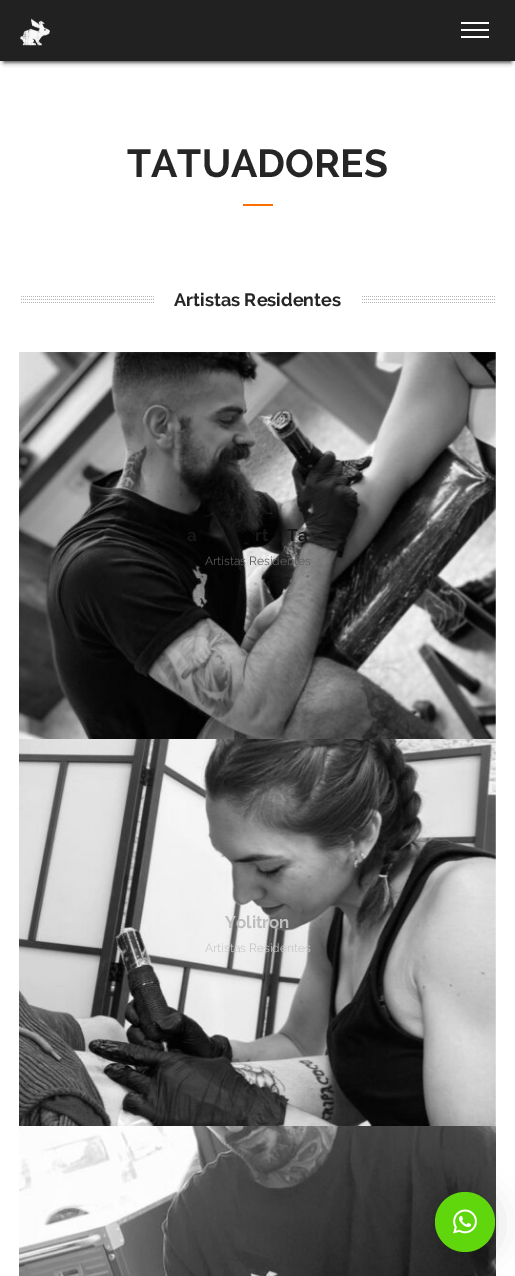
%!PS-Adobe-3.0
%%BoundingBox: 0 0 515 1276
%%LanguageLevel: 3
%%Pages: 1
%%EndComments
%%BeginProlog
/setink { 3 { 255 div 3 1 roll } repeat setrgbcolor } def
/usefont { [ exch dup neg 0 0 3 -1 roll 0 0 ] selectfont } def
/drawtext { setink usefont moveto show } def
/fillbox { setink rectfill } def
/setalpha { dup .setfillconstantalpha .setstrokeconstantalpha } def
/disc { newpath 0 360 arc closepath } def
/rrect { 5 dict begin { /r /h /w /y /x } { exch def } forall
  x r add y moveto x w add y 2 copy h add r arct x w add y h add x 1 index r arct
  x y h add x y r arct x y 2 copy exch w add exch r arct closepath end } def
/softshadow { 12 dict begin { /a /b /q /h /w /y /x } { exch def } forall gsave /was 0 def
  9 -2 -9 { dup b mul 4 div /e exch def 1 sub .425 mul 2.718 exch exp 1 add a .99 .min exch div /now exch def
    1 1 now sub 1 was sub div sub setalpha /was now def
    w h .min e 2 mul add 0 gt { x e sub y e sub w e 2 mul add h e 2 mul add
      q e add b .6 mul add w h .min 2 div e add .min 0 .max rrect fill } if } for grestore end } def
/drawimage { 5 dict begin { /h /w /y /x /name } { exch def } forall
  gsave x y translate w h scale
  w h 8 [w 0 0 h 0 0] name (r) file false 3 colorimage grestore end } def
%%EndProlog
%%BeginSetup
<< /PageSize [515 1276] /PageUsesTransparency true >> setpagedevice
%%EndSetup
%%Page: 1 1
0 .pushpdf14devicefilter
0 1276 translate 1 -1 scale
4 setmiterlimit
0 0 515 1276 255 255 255 fillbox
8 8 8 setink
4 9 507 53 0 2.5 0.9 softshadow
0 0 515 61 33 33 33 fillbox
(assets/img1.rgb) 20 18 30 28 drawimage
461 29 28 2 255 255 255 fillbox
461 22 28 2 255 255 255 fillbox
461 36 28 2 255 255 255 fillbox
(TATUADORES) 127 177 /Raleway-Bold 39 37 37 37 drawtext
243 204 30 2 255 110 0 fillbox
(assets/img2.rgb) 21 296 133 7 drawimage
(Artistas Residentes) 174 306 /Raleway-Bold 18 37 37 37 drawtext
(assets/img2.rgb) 362 296 133 7 drawimage
(assets/img3.rgb) 19 352 477 387 drawimage
(a) 187 541 /Raleway-Bold 17 23 23 23 drawtext
(rt) 255 541 /Raleway-Bold 17 23 23 23 drawtext
(Ta) 287 541 /Raleway-Bold 17 23 23 23 drawtext
(Artistas Residentes) 205 565 /Raleway-Regular 12 93 93 93 drawtext
(assets/img4.rgb) 19 739 477 387 drawimage
(Yolitron) 225 928 /Raleway-Bold 17 189 189 189 drawtext
(Artistas Residentes) 205 952 /Raleway-Regular 12 199 199 199 drawtext
(assets/img5.rgb) 19 1126 477 150 drawimage
0 0 0 setink
435 1194 60 60 30 16 0.16 softshadow
96 214 12 setink
465 1222 30 disc fill
(assets/img6.rgb) 453 1209 24 25 drawimage
.poppdf14devicefilter showpage
%%EOF
